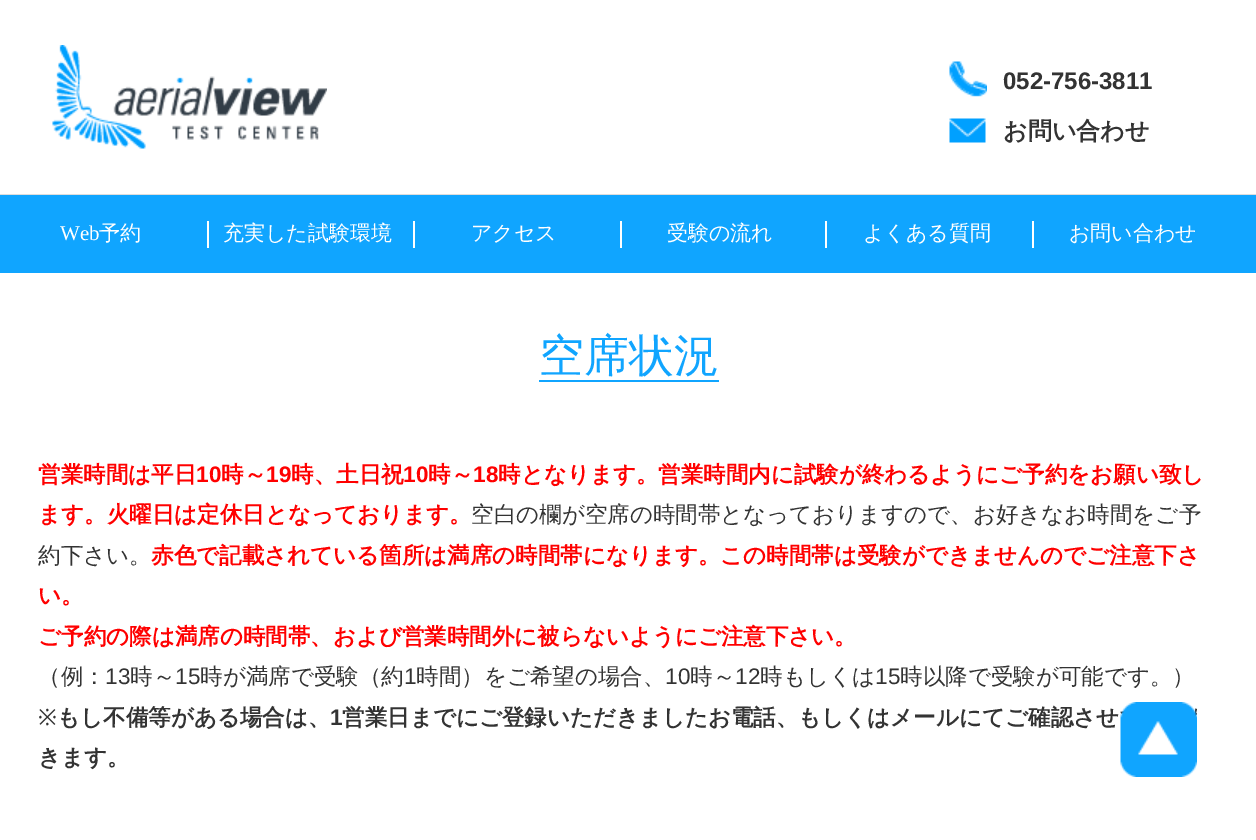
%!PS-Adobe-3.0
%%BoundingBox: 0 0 1256 840
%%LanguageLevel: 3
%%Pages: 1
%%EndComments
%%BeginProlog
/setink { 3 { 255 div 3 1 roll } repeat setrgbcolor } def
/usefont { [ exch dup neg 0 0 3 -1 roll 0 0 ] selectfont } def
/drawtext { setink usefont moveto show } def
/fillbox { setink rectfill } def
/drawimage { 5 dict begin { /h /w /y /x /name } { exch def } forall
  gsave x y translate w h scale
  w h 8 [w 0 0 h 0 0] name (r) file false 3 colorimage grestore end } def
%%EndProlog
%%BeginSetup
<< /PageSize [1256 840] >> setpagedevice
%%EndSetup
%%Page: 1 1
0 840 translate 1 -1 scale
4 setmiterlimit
0 0 1256 840 255 255 255 fillbox
0 194 1256 1 221 221 221 fillbox
(assets/img1.rgb) 52 45 275 104 drawimage
(assets/img2.rgb) 949 61 38 36 drawimage
(052-756-3811) 1003 89 /LiberationSans-Bold 24 51 51 51 drawtext
(assets/img3.rgb) 949 118 37 25 drawimage
(お問い合わせ) 1003 139 /WenQuanYiZenHei-Bold 24 51 51 51 drawtext
0 195 1256 78 16 165 255 fillbox
(Web) 60 240 /LiberationSerif-Regular 21 255 255 255 drawtext
(予約) 99 240 /WenQuanYiZenHei-Medium 21 255 255 255 drawtext
207 221 2 27 255 255 255 fillbox
(充実した試験環境) 223 240 /WenQuanYiZenHei-Medium 21 255 255 255 drawtext
413 221 2 27 255 255 255 fillbox
(アクセス) 471 240 /WenQuanYiZenHei-Medium 21 255 255 255 drawtext
620 221 2 27 255 255 255 fillbox
(受験の流れ) 667 240 /WenQuanYiZenHei-Medium 21 255 255 255 drawtext
825 221 2 27 255 255 255 fillbox
(よくある質問) 863 240 /WenQuanYiZenHei-Medium 21 255 255 255 drawtext
1032 221 2 27 255 255 255 fillbox
(お問い合わせ) 1069 240 /WenQuanYiZenHei-Medium 21 255 255 255 drawtext
(空席状況) 539 371 /WenQuanYiZenHei-Medium 45 16 165 255 drawtext
539 380 180 2 16 165 255 fillbox
(営業時間は平日) 38 482 /WenQuanYiZenHei-Bold 22.5 255 0 0 drawtext
(10) 196 482 /LiberationSans-Bold 22.5 255 0 0 drawtext
(時～) 221 482 /WenQuanYiZenHei-Bold 22.5 255 0 0 drawtext
(19) 266 482 /LiberationSans-Bold 22.5 255 0 0 drawtext
(時、土日祝) 291 482 /WenQuanYiZenHei-Bold 22.5 255 0 0 drawtext
(10) 403 482 /LiberationSans-Bold 22.5 255 0 0 drawtext
(時～) 428 482 /WenQuanYiZenHei-Bold 22.5 255 0 0 drawtext
(18) 473 482 /LiberationSans-Bold 22.5 255 0 0 drawtext
(時となります。営業時間内に試験が終わるようにご予約をお願い致し) 498 482 /WenQuanYiZenHei-Bold 22.5 255 0 0 drawtext
(ます。火曜日は定休日となっております。) 38 522 /WenQuanYiZenHei-Bold 22.5 255 0 0 drawtext
(空白の欄が空席の時間帯となっておりますので、お好きなお時間をご予) 471 522 /WenQuanYiZenHei-Medium 22.5 51 51 51 drawtext
(約下さい。) 38 563 /WenQuanYiZenHei-Medium 22.5 51 51 51 drawtext
(赤色で記載されている箇所は満席の時間帯になります。この時間帯は受験ができませんのでご注意下さ) 151 563 /WenQuanYiZenHei-Bold 22.5 255 0 0 drawtext
(い。) 38 603 /WenQuanYiZenHei-Bold 22.5 255 0 0 drawtext
(ご予約の際は満席の時間帯、および営業時間外に被らないようにご注意下さい。) 38 644 /WenQuanYiZenHei-Bold 22.5 255 0 0 drawtext
(（例：) 38 684 /WenQuanYiZenHei-Medium 22.5 51 51 51 drawtext
(13) 105 684 /LiberationSans-Regular 22.5 51 51 51 drawtext
(時～) 130 684 /WenQuanYiZenHei-Medium 22.5 51 51 51 drawtext
(15) 175 684 /LiberationSans-Regular 22.5 51 51 51 drawtext
(時が満席で受験（約) 200 684 /WenQuanYiZenHei-Medium 22.5 51 51 51 drawtext
(1) 404 684 /LiberationSans-Regular 22.5 51 51 51 drawtext
(時間）をご希望の場合、) 416 684 /WenQuanYiZenHei-Medium 22.5 51 51 51 drawtext
(10) 665 684 /LiberationSans-Regular 22.5 51 51 51 drawtext
(時～) 690 684 /WenQuanYiZenHei-Medium 22.5 51 51 51 drawtext
(12) 735 684 /LiberationSans-Regular 22.5 51 51 51 drawtext
(時もしくは) 760 684 /WenQuanYiZenHei-Medium 22.5 51 51 51 drawtext
(15) 875 684 /LiberationSans-Regular 22.5 51 51 51 drawtext
(時以降で受験が可能です。）) 900 684 /WenQuanYiZenHei-Medium 22.5 51 51 51 drawtext
(※) 38 725 /NotoSans-Regular 22.5 51 51 51 drawtext
(もし不備等がある場合は、) 57 725 /WenQuanYiZenHei-Bold 22.5 51 51 51 drawtext
(1) 330 725 /LiberationSans-Bold 22.5 51 51 51 drawtext
(営業日までにご登録いただきましたお電話、もしくはメールにてご確認させ) 342 725 /WenQuanYiZenHei-Bold 22.5 51 51 51 drawtext
(きます。) 38 765 /WenQuanYiZenHei-Bold 22.5 51 51 51 drawtext
(assets/img4.rgb) 1120 702 77 75 drawimage
showpage
%%EOF
